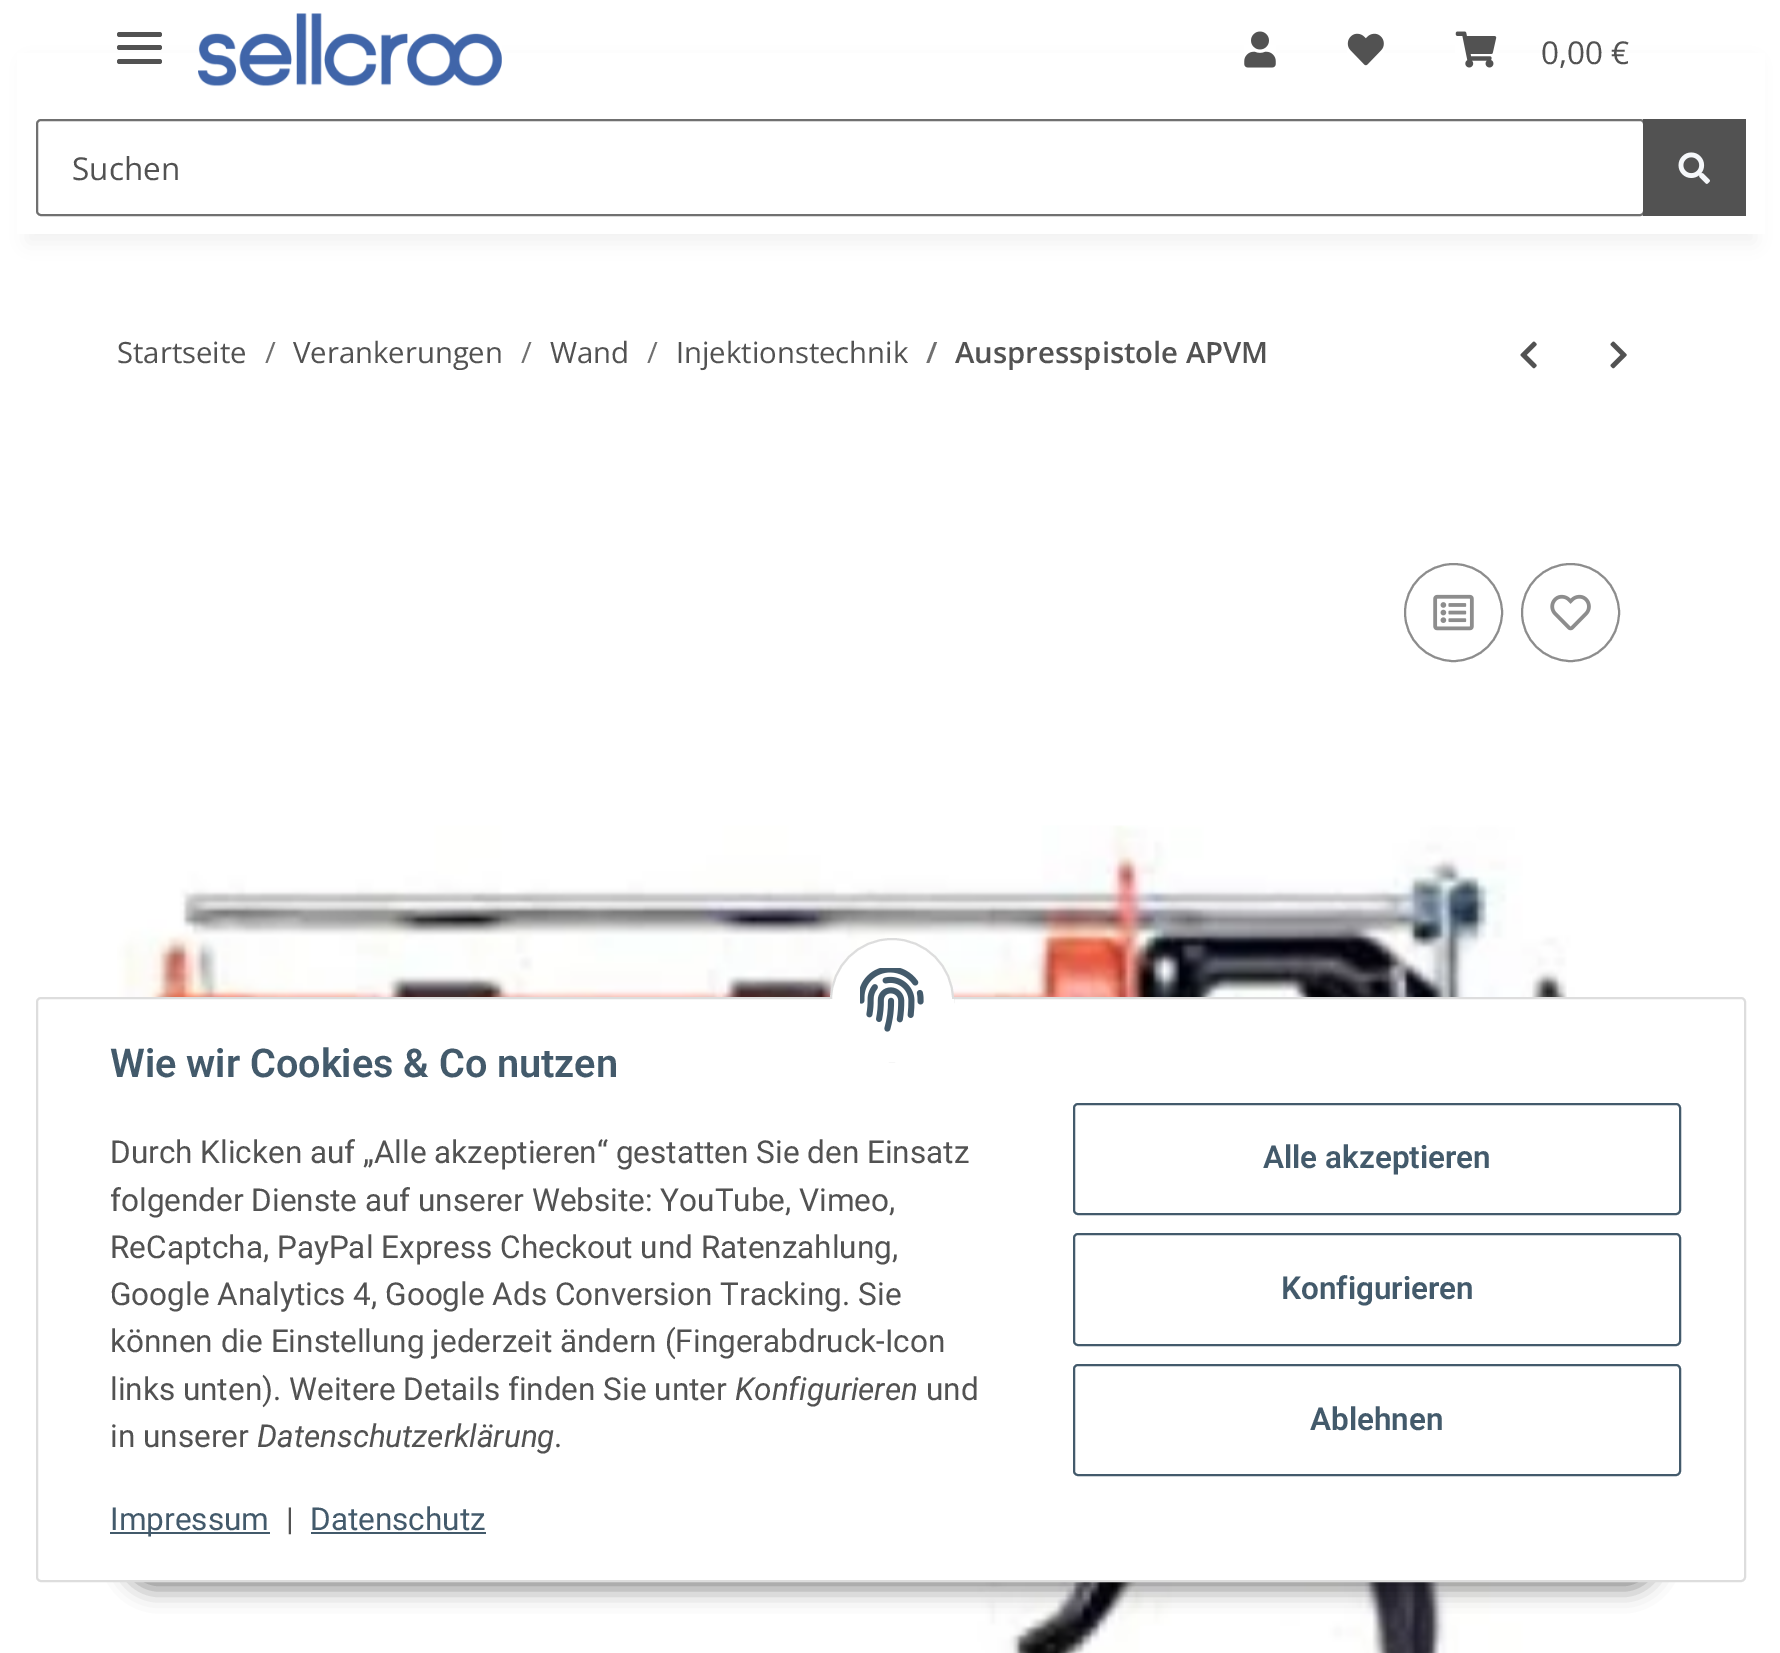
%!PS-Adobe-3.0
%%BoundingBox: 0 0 1780 1653
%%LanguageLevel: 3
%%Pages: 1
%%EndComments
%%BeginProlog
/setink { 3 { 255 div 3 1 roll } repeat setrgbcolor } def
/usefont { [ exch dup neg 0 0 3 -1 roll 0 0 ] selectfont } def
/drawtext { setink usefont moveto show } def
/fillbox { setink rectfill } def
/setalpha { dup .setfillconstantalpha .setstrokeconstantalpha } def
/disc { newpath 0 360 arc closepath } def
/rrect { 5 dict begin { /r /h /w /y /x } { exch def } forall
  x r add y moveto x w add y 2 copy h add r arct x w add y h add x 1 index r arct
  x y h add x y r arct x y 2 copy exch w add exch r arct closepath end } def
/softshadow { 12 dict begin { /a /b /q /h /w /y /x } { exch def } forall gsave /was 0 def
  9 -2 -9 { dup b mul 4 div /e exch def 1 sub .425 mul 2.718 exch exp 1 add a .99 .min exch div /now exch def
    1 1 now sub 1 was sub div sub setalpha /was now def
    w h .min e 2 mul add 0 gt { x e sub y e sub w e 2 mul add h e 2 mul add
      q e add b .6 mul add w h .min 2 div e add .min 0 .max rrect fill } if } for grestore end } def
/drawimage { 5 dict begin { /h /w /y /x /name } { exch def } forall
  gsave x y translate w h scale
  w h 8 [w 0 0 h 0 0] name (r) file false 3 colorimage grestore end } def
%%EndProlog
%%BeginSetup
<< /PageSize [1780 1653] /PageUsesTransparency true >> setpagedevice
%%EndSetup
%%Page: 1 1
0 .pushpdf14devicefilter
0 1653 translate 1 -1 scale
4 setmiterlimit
0 0 1780 1653 255 255 255 fillbox
0 0 0 setink
27 63 1728 180 0 10 0.06 softshadow
17 53 1748 181 255 255 255 fillbox
82 82 82 setink
117 45 45 5 2.5 rrect fill
117 32 45 5 2.5 rrect fill
117 59 45 5 2.5 rrect fill
(assets/img1.rgb) 198 13 304 74 drawimage
(assets/img2.rgb) 1244 31 32 37 drawimage
(assets/img3.rgb) 1347 33 37 33 drawimage
(assets/img4.rgb) 1455 31 42 37 drawimage
(0,00 €) 1541 64 /OpenSans-Regular 31.5 82 82 82 drawtext
112 112 112 setink
2 setlinewidth
37 120 1607 95 4 rrect stroke
(Suchen) 72 180 /OpenSans-Regular 31.5 82 82 82 drawtext
1643 119 103 97 82 82 82 fillbox
(assets/img5.rgb) 1678 152 32 32 drawimage
(Startseite) 117 363 /OpenSans-Regular 29.25 82 82 82 drawtext
(/) 265 363 /OpenSans-Regular 29.25 112 112 112 drawtext
(Verankerungen) 293 363 /OpenSans-Regular 29.25 82 82 82 drawtext
(/) 521 363 /OpenSans-Regular 29.25 112 112 112 drawtext
(Wand) 550 363 /OpenSans-Regular 29.25 82 82 82 drawtext
(/) 647 363 /OpenSans-Regular 29.25 112 112 112 drawtext
(Injektionstechnik) 676 363 /OpenSans-Regular 29.25 82 82 82 drawtext
(/) 926 363 /OpenSans-SemiBold 29.25 112 112 112 drawtext
(Auspresspistole APVM) 955 363 /OpenSans-SemiBold 29.25 82 82 82 drawtext
(assets/img6.rgb) 1520 341 17 28 drawimage
(assets/img7.rgb) 1610 341 17 28 drawimage
141 141 141 setink
1453.5 612.5 48.5 disc stroke
(assets/img8.rgb) 1433 594 41 37 drawimage
1570.5 612.5 48.5 disc stroke
(assets/img9.rgb) 1550 594 41 37 drawimage
(assets/img10.rgb) 117 825 1458 828 drawimage
0 0 0 setink
124 1517 1534 72 36 11 0.45 softshadow
255 255 255 setink
37 998 1708 583 4 rrect gsave fill grestore
221 221 221 setink
stroke
255 255 255 setink
892 1000 61 disc gsave fill grestore
221 221 221 setink
stroke
830 999 124 63 255 255 255 fillbox
(assets/img11.rgb) 860 968 64 64 drawimage
(Wie wir Cookies & Co nutzen) 110 1077 /Roboto-SemiBold 39.6 67 90 107 drawtext
(Durch Klicken auf „Alle akzeptieren“ gestatten Sie den Einsatz) 110 1163 /Roboto-Regular 31.5 82 82 82 drawtext
(folgender Dienste auf unserer Website: YouTube, Vimeo,) 110 1211 /Roboto-Regular 31.5 82 82 82 drawtext
(ReCaptcha, PayPal Express Checkout und Ratenzahlung,) 110 1258 /Roboto-Regular 31.5 82 82 82 drawtext
(Google Analytics 4, Google Ads Conversion Tracking. Sie) 110 1305 /Roboto-Regular 31.5 82 82 82 drawtext
(können die Einstellung jederzeit ändern \(Fingerabdruck-Icon) 110 1352 /Roboto-Regular 31.5 82 82 82 drawtext
(links unten\). Weitere Details finden Sie unter) 110 1400 /Roboto-Regular 31.5 82 82 82 drawtext
(Konfigurieren) 735 1400 /Roboto-Italic 31.5 82 82 82 drawtext
(und) 926 1400 /Roboto-Regular 31.5 82 82 82 drawtext
(in unserer) 110 1447 /Roboto-Regular 31.5 82 82 82 drawtext
(Datenschutzerklärung) 257 1447 /Roboto-Italic 31.5 82 82 82 drawtext
(.) 554 1447 /Roboto-Regular 31.5 82 82 82 drawtext
110 1532 160 2 67 90 107 fillbox
(Impressum) 110 1530 /Roboto-Regular 31.5 67 90 107 drawtext
(|) 286 1530 /Roboto-Regular 31.5 82 82 82 drawtext
(Datenschutz) 310 1530 /Roboto-Regular 31.5 67 90 107 drawtext
311 1532 175 2 67 90 107 fillbox
1074 1104 606 110 4 rrect stroke
(Alle akzeptieren) 1263 1168 /Roboto-SemiBold 31.5 67 90 107 drawtext
1074 1234 606 111 4 rrect stroke
(Konfigurieren) 1281 1299 /Roboto-SemiBold 31.5 67 90 107 drawtext
1074 1365 606 110 4 rrect stroke
(Ablehnen) 1310 1430 /Roboto-SemiBold 31.5 67 90 107 drawtext
.poppdf14devicefilter showpage
%%EOF
